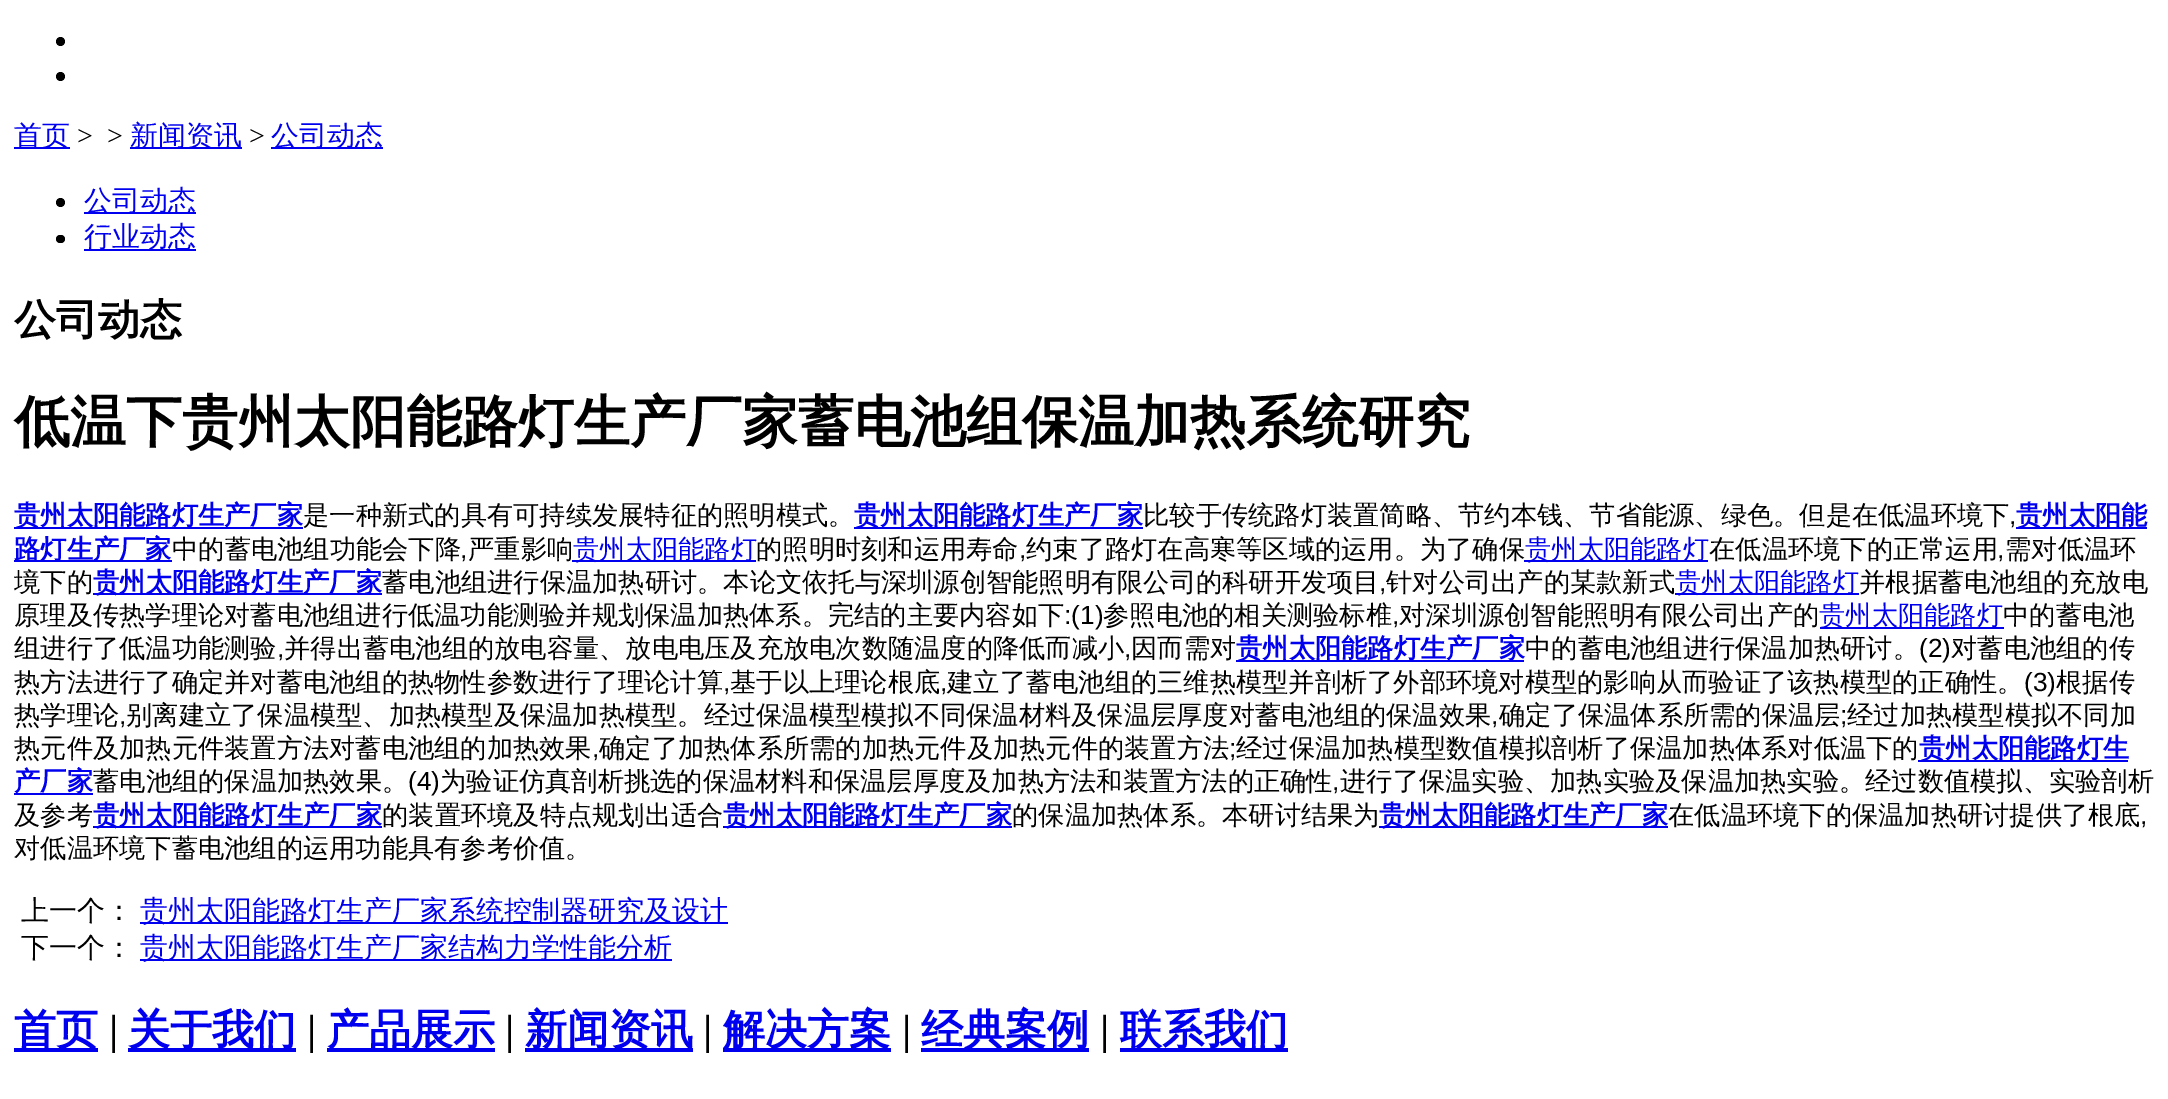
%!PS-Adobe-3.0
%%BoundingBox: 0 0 2168 1099
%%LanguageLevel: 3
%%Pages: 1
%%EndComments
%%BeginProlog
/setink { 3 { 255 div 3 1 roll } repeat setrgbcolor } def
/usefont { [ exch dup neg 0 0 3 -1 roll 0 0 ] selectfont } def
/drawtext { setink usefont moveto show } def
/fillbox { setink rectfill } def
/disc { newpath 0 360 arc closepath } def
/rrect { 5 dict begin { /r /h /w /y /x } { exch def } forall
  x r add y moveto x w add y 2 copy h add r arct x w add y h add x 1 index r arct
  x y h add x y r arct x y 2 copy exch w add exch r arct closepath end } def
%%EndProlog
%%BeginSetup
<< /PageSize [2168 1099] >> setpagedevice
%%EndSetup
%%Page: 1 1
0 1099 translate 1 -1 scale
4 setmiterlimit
0 0 2168 1099 255 255 255 fillbox
0 0 0 setink
60.5 41.5 4.5 disc fill
60.5 76.5 4.5 disc fill
14 147 56 2 0 0 238 fillbox
(首页) 14 145 /WenQuanYiZenHei-Medium 28 0 0 238 drawtext
(>  >) 77 145 /LiberationSerif-Regular 28 0 0 0 drawtext
130 147 112 2 0 0 238 fillbox
(新闻资讯) 130 145 /WenQuanYiZenHei-Medium 28 0 0 238 drawtext
(>) 249 145 /LiberationSerif-Regular 28 0 0 0 drawtext
271 147 112 2 0 0 238 fillbox
(公司动态) 271 145 /WenQuanYiZenHei-Medium 28 0 0 238 drawtext
0 0 0 setink
60.5 202.5 4.5 disc fill
84 212 112 2 0 0 238 fillbox
(公司动态) 84 210 /WenQuanYiZenHei-Medium 28 0 0 238 drawtext
0 0 0 setink
56 235 9 8 4 rrect fill
84 249 112 2 0 0 238 fillbox
(行业动态) 84 246 /WenQuanYiZenHei-Medium 28 0 0 238 drawtext
(公司动态) 14 334 /WenQuanYiZenHei-Bold 42 0 0 0 drawtext
(低温下贵州太阳能路灯生产厂家蓄电池组保温加热系统研究) 14 441 /WenQuanYiZenHei-Bold 56 0 0 0 drawtext
14 527 289 2 0 0 238 fillbox
(贵州太阳能路灯生产厂家) 14 524 /WenQuanYiZenHei-Bold 26.25 0 0 238 drawtext
(是一种新式的具有可持续发展特征的照明模式。) 303 524 /WenQuanYiZenHei-Medium 26.25 0 0 0 drawtext
854 527 289 2 0 0 238 fillbox
(贵州太阳能路灯生产厂家) 854 524 /WenQuanYiZenHei-Bold 26.25 0 0 238 drawtext
(比较于传统路灯装置简略、节约本钱、节省能源、绿色。但是在低温环境下) 1143 524 /WenQuanYiZenHei-Medium 26.25 0 0 0 drawtext
(,) 2009 524 /LiberationSans-Regular 26.25 0 0 0 drawtext
2016 527 131 2 0 0 238 fillbox
(贵州太阳能) 2016 524 /WenQuanYiZenHei-Bold 26.25 0 0 238 drawtext
14 560 158 2 0 0 238 fillbox
(路灯生产厂家) 14 558 /WenQuanYiZenHei-Bold 26.25 0 0 238 drawtext
(中的蓄电池组功能会下降) 172 558 /WenQuanYiZenHei-Medium 26.25 0 0 0 drawtext
(,) 460 558 /LiberationSans-Regular 26.25 0 0 0 drawtext
(严重影响) 468 558 /WenQuanYiZenHei-Medium 26.25 0 0 0 drawtext
572 560 184 2 0 0 238 fillbox
(贵州太阳能路灯) 573 558 /WenQuanYiZenHei-Medium 26.25 0 0 238 drawtext
(的照明时刻和运用寿命) 756 558 /WenQuanYiZenHei-Medium 26.25 0 0 0 drawtext
(,) 1019 558 /LiberationSans-Regular 26.25 0 0 0 drawtext
(约束了路灯在高寒等区域的运用。为了确保) 1026 558 /WenQuanYiZenHei-Medium 26.25 0 0 0 drawtext
1524 560 184 2 0 0 238 fillbox
(贵州太阳能路灯) 1525 558 /WenQuanYiZenHei-Medium 26.25 0 0 238 drawtext
(在低温环境下的正常运用) 1709 558 /WenQuanYiZenHei-Medium 26.25 0 0 0 drawtext
(,) 1997 558 /LiberationSans-Regular 26.25 0 0 0 drawtext
(需对低温环) 2005 558 /WenQuanYiZenHei-Medium 26.25 0 0 0 drawtext
(境下的) 14 591 /WenQuanYiZenHei-Medium 26.25 0 0 0 drawtext
93 593 289 2 0 0 238 fillbox
(贵州太阳能路灯生产厂家) 93 591 /WenQuanYiZenHei-Bold 26.25 0 0 238 drawtext
(蓄电池组进行保温加热研讨。本论文依托与深圳源创智能照明有限公司的科研开发项目) 382 591 /WenQuanYiZenHei-Medium 26.25 0 0 0 drawtext
(,) 1379 591 /LiberationSans-Regular 26.25 0 0 0 drawtext
(针对公司出产的某款新式) 1386 591 /WenQuanYiZenHei-Medium 26.25 0 0 0 drawtext
1675 593 184 2 0 0 238 fillbox
(贵州太阳能路灯) 1675 591 /WenQuanYiZenHei-Medium 26.25 0 0 238 drawtext
(并根据蓄电池组的充放电) 1859 591 /WenQuanYiZenHei-Medium 26.25 0 0 0 drawtext
(原理及传热学理论对蓄电池组进行低温功能测验并规划保温加热体系。完结的主要内容如下) 14 624 /WenQuanYiZenHei-Medium 26.25 0 0 0 drawtext
(:\(1\)) 1064 624 /LiberationSans-Regular 26.25 0 0 0 drawtext
(参照电池的相关测验标椎) 1103 624 /WenQuanYiZenHei-Medium 26.25 0 0 0 drawtext
(,) 1392 624 /LiberationSans-Regular 26.25 0 0 0 drawtext
(对深圳源创智能照明有限公司出产的) 1399 624 /WenQuanYiZenHei-Medium 26.25 0 0 0 drawtext
1820 627 184 2 0 0 238 fillbox
(贵州太阳能路灯) 1819 624 /WenQuanYiZenHei-Medium 26.25 0 0 238 drawtext
(中的蓄电池) 2003 624 /WenQuanYiZenHei-Medium 26.25 0 0 0 drawtext
(组进行了低温功能测验) 14 657 /WenQuanYiZenHei-Medium 26.25 0 0 0 drawtext
(,) 277 657 /LiberationSans-Regular 26.25 0 0 0 drawtext
(并得出蓄电池组的放电容量、放电电压及充放电次数随温度的降低而减小) 284 657 /WenQuanYiZenHei-Medium 26.25 0 0 0 drawtext
(,) 1124 657 /LiberationSans-Regular 26.25 0 0 0 drawtext
(因而需对) 1131 657 /WenQuanYiZenHei-Medium 26.25 0 0 0 drawtext
1236 660 288 2 0 0 238 fillbox
(贵州太阳能路灯生产厂家) 1236 657 /WenQuanYiZenHei-Bold 26.25 0 0 238 drawtext
(中的蓄电池组进行保温加热研讨。) 1525 657 /WenQuanYiZenHei-Medium 26.25 0 0 0 drawtext
(\(2\)) 1919 657 /LiberationSans-Regular 26.25 0 0 0 drawtext
(对蓄电池组的传) 1951 657 /WenQuanYiZenHei-Medium 26.25 0 0 0 drawtext
(热方法进行了确定并对蓄电池组的热物性参数进行了理论计算) 14 691 /WenQuanYiZenHei-Medium 26.25 0 0 0 drawtext
(,) 723 691 /LiberationSans-Regular 26.25 0 0 0 drawtext
(基于以上理论根底) 730 691 /WenQuanYiZenHei-Medium 26.25 0 0 0 drawtext
(,) 940 691 /LiberationSans-Regular 26.25 0 0 0 drawtext
(建立了蓄电池组的三维热模型并剖析了外部环境对模型的影响从而验证了该热模型的正确性。) 947 691 /WenQuanYiZenHei-Medium 26.25 0 0 0 drawtext
(\(3\)) 2024 691 /LiberationSans-Regular 26.25 0 0 0 drawtext
(根据传) 2056 691 /WenQuanYiZenHei-Medium 26.25 0 0 0 drawtext
(热学理论) 14 724 /WenQuanYiZenHei-Medium 26.25 0 0 0 drawtext
(,) 119 724 /LiberationSans-Regular 26.25 0 0 0 drawtext
(别离建立了保温模型、加热模型及保温加热模型。经过保温模型模拟不同保温材料及保温层厚度对蓄电池组的保温效果) 126 724 /WenQuanYiZenHei-Medium 26.25 0 0 0 drawtext
(,) 1491 724 /LiberationSans-Regular 26.25 0 0 0 drawtext
(确定了保温体系所需的保温层) 1499 724 /WenQuanYiZenHei-Medium 26.25 0 0 0 drawtext
(;) 1840 724 /LiberationSans-Regular 26.25 0 0 0 drawtext
(经过加热模型模拟不同加) 1847 724 /WenQuanYiZenHei-Medium 26.25 0 0 0 drawtext
(热元件及加热元件装置方法对蓄电池组的加热效果) 14 757 /WenQuanYiZenHei-Medium 26.25 0 0 0 drawtext
(,) 592 757 /LiberationSans-Regular 26.25 0 0 0 drawtext
(确定了加热体系所需的加热元件及加热元件的装置方法) 599 757 /WenQuanYiZenHei-Medium 26.25 0 0 0 drawtext
(;) 1229 757 /LiberationSans-Regular 26.25 0 0 0 drawtext
(经过保温加热模型数值模拟剖析了保温加热体系对低温下的) 1236 757 /WenQuanYiZenHei-Medium 26.25 0 0 0 drawtext
1918 760 210 2 0 0 238 fillbox
(贵州太阳能路灯生) 1919 757 /WenQuanYiZenHei-Bold 26.25 0 0 238 drawtext
14 793 79 2 0 0 238 fillbox
(产厂家) 14 790 /WenQuanYiZenHei-Bold 26.25 0 0 238 drawtext
(蓄电池组的保温加热效果。) 93 790 /WenQuanYiZenHei-Medium 26.25 0 0 0 drawtext
(\(4\)) 408 790 /LiberationSans-Regular 26.25 0 0 0 drawtext
(为验证仿真剖析挑选的保温材料和保温层厚度及加热方法和装置方法的正确性) 440 790 /WenQuanYiZenHei-Medium 26.25 0 0 0 drawtext
(,) 1332 790 /LiberationSans-Regular 26.25 0 0 0 drawtext
(进行了保温实验、加热实验及保温加热实验。经过数值模拟、实验剖析) 1340 790 /WenQuanYiZenHei-Medium 26.25 0 0 0 drawtext
(及参考) 14 824 /WenQuanYiZenHei-Medium 26.25 0 0 0 drawtext
93 826 289 2 0 0 238 fillbox
(贵州太阳能路灯生产厂家) 93 824 /WenQuanYiZenHei-Bold 26.25 0 0 238 drawtext
(的装置环境及特点规划出适合) 382 824 /WenQuanYiZenHei-Medium 26.25 0 0 0 drawtext
723 826 289 2 0 0 238 fillbox
(贵州太阳能路灯生产厂家) 723 824 /WenQuanYiZenHei-Bold 26.25 0 0 238 drawtext
(的保温加热体系。本研讨结果为) 1012 824 /WenQuanYiZenHei-Medium 26.25 0 0 0 drawtext
1379 826 289 2 0 0 238 fillbox
(贵州太阳能路灯生产厂家) 1379 824 /WenQuanYiZenHei-Bold 26.25 0 0 238 drawtext
(在低温环境下的保温加热研讨提供了根底) 1668 824 /WenQuanYiZenHei-Medium 26.25 0 0 0 drawtext
(,) 2140 824 /LiberationSans-Regular 26.25 0 0 0 drawtext
(对低温环境下蓄电池组的运用功能具有参考价值。) 14 857 /WenQuanYiZenHei-Medium 26.25 0 0 0 drawtext
(上一个：) 21 920 /WenQuanYiZenHei-Medium 28 0 0 0 drawtext
140 922 588 2 0 0 238 fillbox
(贵州太阳能路灯生产厂家系统控制器研究及设计) 140 920 /WenQuanYiZenHei-Medium 28 0 0 238 drawtext
(下一个：) 21 957 /WenQuanYiZenHei-Medium 28 0 0 0 drawtext
140 959 532 2 0 0 238 fillbox
(贵州太阳能路灯生产厂家结构力学性能分析) 140 957 /WenQuanYiZenHei-Medium 28 0 0 238 drawtext
14 1048 84 4 0 0 238 fillbox
(首页) 14 1044 /WenQuanYiZenHei-Bold 42 0 0 238 drawtext
(|) 109 1044 /LiberationSerif-Bold 42 0 0 0 drawtext
128 1048 168 4 0 0 238 fillbox
(关于我们) 128 1044 /WenQuanYiZenHei-Bold 42 0 0 238 drawtext
(|) 307 1044 /LiberationSerif-Bold 42 0 0 0 drawtext
327 1048 168 4 0 0 238 fillbox
(产品展示) 327 1044 /WenQuanYiZenHei-Bold 42 0 0 238 drawtext
(|) 505 1044 /LiberationSerif-Bold 42 0 0 0 drawtext
525 1048 168 4 0 0 238 fillbox
(新闻资讯) 525 1044 /WenQuanYiZenHei-Bold 42 0 0 238 drawtext
(|) 703 1044 /LiberationSerif-Bold 42 0 0 0 drawtext
723 1048 168 4 0 0 238 fillbox
(解决方案) 723 1044 /WenQuanYiZenHei-Bold 42 0 0 238 drawtext
(|) 902 1044 /LiberationSerif-Bold 42 0 0 0 drawtext
921 1048 168 4 0 0 238 fillbox
(经典案例) 921 1044 /WenQuanYiZenHei-Bold 42 0 0 238 drawtext
(|) 1100 1044 /LiberationSerif-Bold 42 0 0 0 drawtext
1120 1048 168 4 0 0 238 fillbox
(联系我们) 1120 1044 /WenQuanYiZenHei-Bold 42 0 0 238 drawtext
showpage
%%EOF
